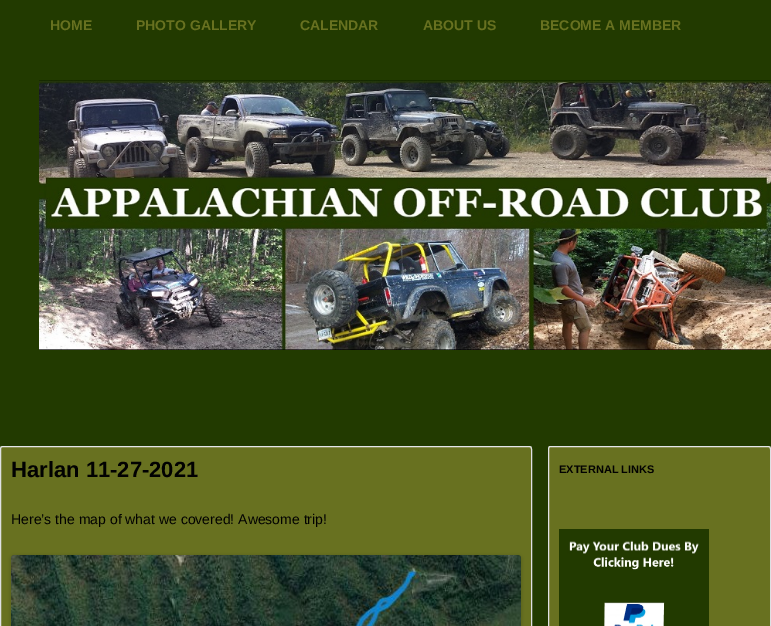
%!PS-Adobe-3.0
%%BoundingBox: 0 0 771 626
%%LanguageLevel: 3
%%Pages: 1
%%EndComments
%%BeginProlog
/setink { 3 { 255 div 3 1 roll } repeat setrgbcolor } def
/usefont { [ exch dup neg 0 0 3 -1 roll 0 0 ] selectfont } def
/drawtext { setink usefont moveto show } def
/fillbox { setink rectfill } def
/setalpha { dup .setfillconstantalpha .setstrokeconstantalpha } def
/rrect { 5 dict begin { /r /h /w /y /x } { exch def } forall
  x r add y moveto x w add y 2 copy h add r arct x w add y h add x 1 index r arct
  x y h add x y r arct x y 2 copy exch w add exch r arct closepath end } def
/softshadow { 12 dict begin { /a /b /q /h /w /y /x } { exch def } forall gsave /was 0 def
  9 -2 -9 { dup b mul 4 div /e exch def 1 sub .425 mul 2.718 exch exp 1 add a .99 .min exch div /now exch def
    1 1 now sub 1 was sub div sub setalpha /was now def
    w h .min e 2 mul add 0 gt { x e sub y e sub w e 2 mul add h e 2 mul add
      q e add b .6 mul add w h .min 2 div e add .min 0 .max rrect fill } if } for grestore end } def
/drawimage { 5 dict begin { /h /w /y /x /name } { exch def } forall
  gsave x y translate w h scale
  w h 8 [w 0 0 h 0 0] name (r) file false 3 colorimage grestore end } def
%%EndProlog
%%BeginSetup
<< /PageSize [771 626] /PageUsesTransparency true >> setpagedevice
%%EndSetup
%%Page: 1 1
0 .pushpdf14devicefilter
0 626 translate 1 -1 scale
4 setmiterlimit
0 0 771 626 34 58 0 fillbox
(HOME) 50 30 /LiberationSans-Bold 14 104 113 32 drawtext
(PHOTO GALLERY) 136 30 /LiberationSans-Bold 14 104 113 32 drawtext
(CALENDAR) 300 30 /LiberationSans-Bold 14 104 113 32 drawtext
(ABOUT US) 423 30 /LiberationSans-Bold 14 104 113 32 drawtext
(BECOME A MEMBER) 540 30 /LiberationSans-Bold 14 104 113 32 drawtext
(assets/img1.rgb) 39 80 732 270 drawimage
0 446 532 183 3 rrect fill
229 230 233 setink
1 447 moveto 3 446.5 lineto 529 446.5 lineto 531 447 lineto stroke
223 224 228 setink
531 447 moveto 531.5 449 lineto 531.5 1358 lineto 531 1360 lineto stroke
1 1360 moveto 0.5 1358 lineto 0.5 449 lineto 1 447 lineto stroke
(Harlan 11-27-2021) 11 477 /LiberationSans-Bold 22 1 1 1 drawtext
(Here’s the map of what we covered! Awesome trip!) 11 524 /LiberationSans-Regular 14 1 1 1 drawtext
0 0 0 setink
11 556 510 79 3 2 0.2 softshadow
(assets/img2.rgb) 11 555 510 71 drawimage
104 113 32 setink
548 446 223 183 3 rrect fill
229 230 233 setink
549 447 moveto 550 446.5 lineto 732 446.5 lineto 768 446.5 lineto 770 447 lineto stroke
223 224 228 setink
770 447 moveto 770.5 449 lineto 770.5 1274 lineto 770 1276 lineto stroke
549 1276 moveto 548.5 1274 lineto 548.5 449 lineto 549 447 lineto stroke
(EXTERNAL LINKS) 559 473 /LiberationSans-Bold 11 1 1 1 drawtext
(assets/img3.rgb) 559 529 150 97 drawimage
.poppdf14devicefilter showpage
%%EOF
